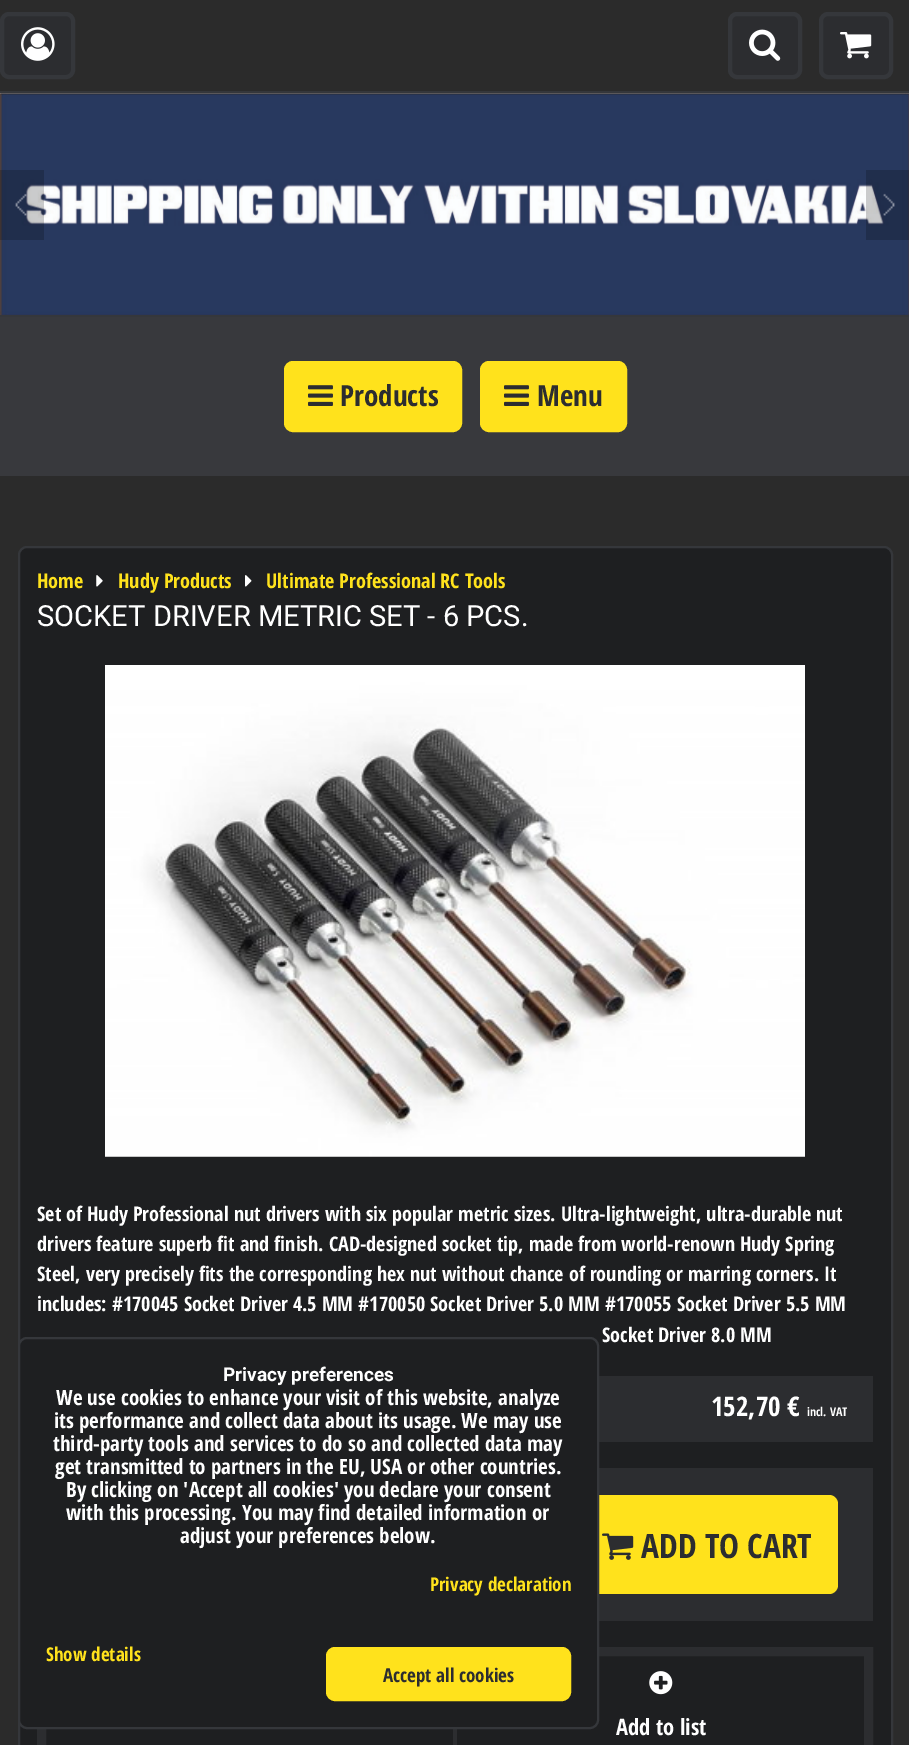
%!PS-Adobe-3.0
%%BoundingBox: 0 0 909 1745
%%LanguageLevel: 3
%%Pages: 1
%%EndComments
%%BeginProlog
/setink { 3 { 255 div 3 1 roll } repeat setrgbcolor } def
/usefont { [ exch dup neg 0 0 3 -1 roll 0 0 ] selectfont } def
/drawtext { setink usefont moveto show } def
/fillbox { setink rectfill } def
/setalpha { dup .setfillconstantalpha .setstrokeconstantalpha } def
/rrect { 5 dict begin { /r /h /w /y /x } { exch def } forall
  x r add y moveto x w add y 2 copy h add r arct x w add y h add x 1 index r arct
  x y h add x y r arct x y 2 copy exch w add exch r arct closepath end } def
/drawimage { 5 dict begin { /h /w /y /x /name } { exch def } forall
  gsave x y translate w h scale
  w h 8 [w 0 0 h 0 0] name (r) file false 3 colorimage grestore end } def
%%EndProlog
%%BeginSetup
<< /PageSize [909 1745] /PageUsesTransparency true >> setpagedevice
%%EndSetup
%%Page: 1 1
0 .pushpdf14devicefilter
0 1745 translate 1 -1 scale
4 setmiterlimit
0 0 909 1745 43 43 43 fillbox
44 45 48 setink
2 14 71 63 7 rrect gsave fill grestore
53 55 59 setink
4 setlinewidth
stroke
(assets/img1.rgb) 21 27 34 34 drawimage
44 45 48 setink
730 14 70 63 7 rrect gsave fill grestore
53 55 59 setink
stroke
(assets/img2.rgb) 749 29 32 32 drawimage
44 45 48 setink
821 14 70 63 7 rrect gsave fill grestore
53 55 59 setink
stroke
(assets/img3.rgb) 840 32 32 27 drawimage
0 91 909 2 53 55 59 fillbox
0 315 909 2 53 55 59 fillbox
(assets/img4.rgb) 0 93 909 222 drawimage
0.2 setalpha
0 170 44 70 0 0 0 fillbox
1 setalpha
(assets/img5.rgb) 15 193 12 23 drawimage
0.2 setalpha
866 170 43 70 0 0 0 fillbox
1 setalpha
(assets/img6.rgb) 883 193 12 23 drawimage
0 317 909 159 56 57 61 fillbox
255 226 28 setink
285 362 176 69 8 rrect gsave fill grestore
2 setlinewidth
stroke
(assets/img7.rgb) 308 385 25 21 drawimage
(Products) 340 406 /OpenSansCondensed-Bold 29.1 44 45 48 drawtext
255 226 28 setink
481 362 145 69 8 rrect gsave fill grestore
stroke
(assets/img7.rgb) 504 385 25 21 drawimage
(Menu) 537 406 /OpenSansCondensed-Bold 29.1 44 45 48 drawtext
30 31 33 setink
19 547 873 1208 8 rrect gsave fill grestore
53 55 59 setink
stroke
(Home) 37 588 /OpenSansCondensed-Bold 20.15 255 226 28 drawtext
(assets/img8.rgb) 96 575 7 12 drawimage
(Hudy Products) 118 588 /OpenSansCondensed-Bold 20.15 255 226 28 drawtext
(assets/img9.rgb) 245 575 7 12 drawimage
(Ultimate Professional RC Tools) 266 588 /OpenSansCondensed-Bold 20.15 255 226 28 drawtext
(SOCKET DRIVER METRIC SET - 6 PCS.) 37 626 /Roboto-Regular 29.1 255 255 255 drawtext
(assets/img10.rgb) 105 665 700 492 drawimage
(Set of Hudy Professional nut drivers with six popular metric sizes. Ultra-lightweight, ultra-durable nut) 37 1221 /OpenSansCondensed-Bold 20.15 255 255 255 drawtext
(drivers feature superb fit and finish. CAD-designed socket tip, made from world-renown Hudy Spring) 37 1251 /OpenSansCondensed-Bold 20.15 255 255 255 drawtext
(Steel, very precisely fits the corresponding hex nut without chance of rounding or marring corners.) 37 1281 /OpenSansCondensed-Bold 20.15 255 255 255 drawtext
(It) 824 1281 /OpenSansCondensed-Bold 20.15 255 255 255 drawtext
(includes: #170045 Socket Driver 4.5 MM #170050 Socket Driver 5.0 MM #170055 Socket Driver 5.5 MM) 37 1311 /OpenSansCondensed-Bold 20.15 255 255 255 drawtext
(Socket Driver 8.0 MM) 602 1342 /OpenSansCondensed-Bold 20.15 255 255 255 drawtext
599 1376 274 66 44 45 48 fillbox
(152,70 €) 711 1416 /OpenSansCondensed-Bold 27 255 255 255 drawtext
(incl. VAT) 807 1416 /OpenSansCondensed-Bold 12 255 255 255 drawtext
599 1468 274 153 44 45 48 fillbox
255 226 28 setink
576 1495 262 99 9 rrect fill
(assets/img11.rgb) 602 1533 32 27 drawimage
(ADD TO CART) 641 1558 /OpenSansCondensed-Bold 33.5 44 45 48 drawtext
9 setlinewidth
41.5 1651.5 827 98 rectstroke
453 1729 4 16 44 45 48 fillbox
(assets/img12.rgb) 649 1671 24 24 drawimage
(Add to list) 616 1735 /OpenSansCondensed-Bold 22.5 255 255 255 drawtext
30 31 33 setink
19 1338 579 390 8 rrect gsave fill grestore
53 55 59 setink
2 setlinewidth
stroke
(Privacy preferences) 223 1381 /Roboto-Bold 19 255 255 255 drawtext
(We use cookies to enhance your visit of this website, analyze) 56 1405 /OpenSansCondensed-Bold 21 255 255 255 drawtext
(its performance and collect data about its usage. We may use) 54 1428 /OpenSansCondensed-Bold 21 255 255 255 drawtext
(third-party tools and services to do so and collected data may) 53 1451 /OpenSansCondensed-Bold 21 255 255 255 drawtext
(get transmitted to partners in the EU, USA or other countries.) 55 1474 /OpenSansCondensed-Bold 21 255 255 255 drawtext
(By clicking on 'Accept all cookies' you declare your consent) 66 1497 /OpenSansCondensed-Bold 21 255 255 255 drawtext
(with this processing. You may find detailed information or) 66 1520 /OpenSansCondensed-Bold 21 255 255 255 drawtext
(adjust your preferences below.) 180 1543 /OpenSansCondensed-Bold 21 255 255 255 drawtext
(Privacy declaration) 430 1591 /OpenSansCondensed-Bold 19 255 226 28 drawtext
(Show details) 46 1661 /OpenSansCondensed-Bold 19 255 226 28 drawtext
327 1648 243 52 8 rrect gsave fill grestore
stroke
(Accept all cookies) 383 1682 /OpenSansCondensed-Bold 19 44 45 48 drawtext
.poppdf14devicefilter showpage
%%EOF
